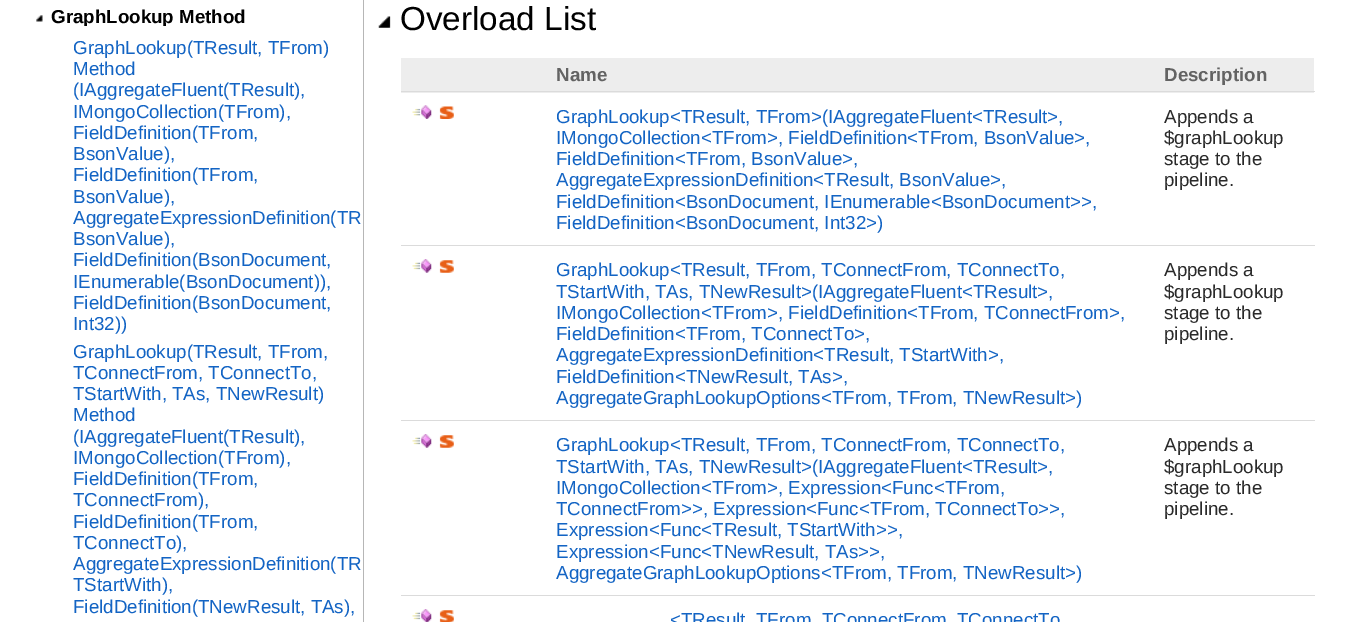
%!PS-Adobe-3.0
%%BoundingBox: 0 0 1351 622
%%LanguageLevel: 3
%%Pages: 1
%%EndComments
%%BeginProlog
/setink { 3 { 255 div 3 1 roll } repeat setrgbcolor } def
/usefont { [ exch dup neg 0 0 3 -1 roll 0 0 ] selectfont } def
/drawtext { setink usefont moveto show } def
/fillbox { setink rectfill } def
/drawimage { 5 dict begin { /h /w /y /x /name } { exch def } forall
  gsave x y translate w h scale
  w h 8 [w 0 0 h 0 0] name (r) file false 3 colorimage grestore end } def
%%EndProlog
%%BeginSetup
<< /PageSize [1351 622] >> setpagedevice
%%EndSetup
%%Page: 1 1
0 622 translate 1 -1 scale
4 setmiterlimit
0 0 1351 622 255 255 255 fillbox
363 0 1 622 182 182 182 fillbox
(assets/img1.rgb) 36 15 7 7 drawimage
gsave
51 5 312 21 rectclip
(GraphLookup Method) 51 23 /LiberationSans-Bold 18.75 0 0 0 drawtext
grestore
(GraphLookup\(TResult, TFrom\)) 73 54 /LiberationSans-Regular 18.75 19 100 196 drawtext
(Method) 73 75 /LiberationSans-Regular 18.75 19 100 196 drawtext
(\(IAggregateFluent\(TResult\),) 73 96 /LiberationSans-Regular 18.75 19 100 196 drawtext
(IMongoCollection\(TFrom\),) 73 118 /LiberationSans-Regular 18.75 19 100 196 drawtext
(FieldDefinition\(TFrom,) 73 139 /LiberationSans-Regular 18.75 19 100 196 drawtext
(BsonValue\),) 73 160 /LiberationSans-Regular 18.75 19 100 196 drawtext
(FieldDefinition\(TFrom,) 73 181 /LiberationSans-Regular 18.75 19 100 196 drawtext
(BsonValue\),) 73 203 /LiberationSans-Regular 18.75 19 100 196 drawtext
(AggregateExpressionDefinition\(TR) 73 224 /LiberationSans-Regular 18.75 19 100 196 drawtext
(BsonValue\),) 73 245 /LiberationSans-Regular 18.75 19 100 196 drawtext
(FieldDefinition\(BsonDocument,) 73 266 /LiberationSans-Regular 18.75 19 100 196 drawtext
(IEnumerable\(BsonDocument\)\),) 73 288 /LiberationSans-Regular 18.75 19 100 196 drawtext
(FieldDefinition\(BsonDocument,) 73 309 /LiberationSans-Regular 18.75 19 100 196 drawtext
(Int32\)\)) 73 330 /LiberationSans-Regular 18.75 19 100 196 drawtext
(GraphLookup\(TResult, TFrom,) 73 358 /LiberationSans-Regular 18.75 19 100 196 drawtext
(TConnectFrom, TConnectTo,) 73 379 /LiberationSans-Regular 18.75 19 100 196 drawtext
(TStartWith, TAs, TNewResult\)) 73 400 /LiberationSans-Regular 18.75 19 100 196 drawtext
(Method) 73 421 /LiberationSans-Regular 18.75 19 100 196 drawtext
(\(IAggregateFluent\(TResult\),) 73 443 /LiberationSans-Regular 18.75 19 100 196 drawtext
(IMongoCollection\(TFrom\),) 73 464 /LiberationSans-Regular 18.75 19 100 196 drawtext
(FieldDefinition\(TFrom,) 73 485 /LiberationSans-Regular 18.75 19 100 196 drawtext
(TConnectFrom\),) 73 506 /LiberationSans-Regular 18.75 19 100 196 drawtext
(FieldDefinition\(TFrom,) 73 528 /LiberationSans-Regular 18.75 19 100 196 drawtext
(TConnectTo\),) 73 549 /LiberationSans-Regular 18.75 19 100 196 drawtext
(AggregateExpressionDefinition\(TR) 73 570 /LiberationSans-Regular 18.75 19 100 196 drawtext
(TStartWith\),) 73 591 /LiberationSans-Regular 18.75 19 100 196 drawtext
(FieldDefinition\(TNewResult, TAs\),) 73 613 /LiberationSans-Regular 18.75 19 100 196 drawtext
(assets/img2.rgb) 378 16 13 12 drawimage
(Overload List) 400 30 /LiberationSans-Regular 33.25 0 0 0 drawtext
401 58 913 35 237 237 237 fillbox
(Name) 556 81 /LiberationSans-Bold 18.75 99 99 99 drawtext
401 91 914 1 219 219 219 fillbox
(Description) 1164 81 /LiberationSans-Bold 18.75 99 99 99 drawtext
(assets/img3.rgb) 412 105 20 14 drawimage
(assets/img4.rgb) 439 106 15 13 drawimage
(GraphLookup<TResult, TFrom>\(IAggregateFluent<TResult>,) 556 123 /LiberationSans-Regular 18.75 19 100 196 drawtext
(IMongoCollection<TFrom>, FieldDefinition<TFrom, BsonValue>,) 556 144 /LiberationSans-Regular 18.75 19 100 196 drawtext
(FieldDefinition<TFrom, BsonValue>,) 556 165 /LiberationSans-Regular 18.75 19 100 196 drawtext
(AggregateExpressionDefinition<TResult, BsonValue>,) 556 186 /LiberationSans-Regular 18.75 19 100 196 drawtext
(FieldDefinition<BsonDocument, IEnumerable<BsonDocument>>,) 556 208 /LiberationSans-Regular 18.75 19 100 196 drawtext
(FieldDefinition<BsonDocument, Int32>\)) 556 229 /LiberationSans-Regular 18.75 19 100 196 drawtext
401 245 914 1 219 219 219 fillbox
(Appends a) 1164 123 /LiberationSans-Regular 18.75 42 42 42 drawtext
($graphLookup) 1164 144 /LiberationSans-Regular 18.75 42 42 42 drawtext
(stage to the) 1164 165 /LiberationSans-Regular 18.75 42 42 42 drawtext
(pipeline.) 1164 186 /LiberationSans-Regular 18.75 42 42 42 drawtext
(assets/img5.rgb) 412 259 20 14 drawimage
(assets/img6.rgb) 439 260 15 13 drawimage
(GraphLookup<TResult, TFrom, TConnectFrom, TConnectTo,) 556 276 /LiberationSans-Regular 18.75 19 100 196 drawtext
(TStartWith, TAs, TNewResult>\(IAggregateFluent<TResult>,) 556 298 /LiberationSans-Regular 18.75 19 100 196 drawtext
(IMongoCollection<TFrom>, FieldDefinition<TFrom, TConnectFrom>,) 556 319 /LiberationSans-Regular 18.75 19 100 196 drawtext
(FieldDefinition<TFrom, TConnectTo>,) 556 340 /LiberationSans-Regular 18.75 19 100 196 drawtext
(AggregateExpressionDefinition<TResult, TStartWith>,) 556 361 /LiberationSans-Regular 18.75 19 100 196 drawtext
(FieldDefinition<TNewResult, TAs>,) 556 383 /LiberationSans-Regular 18.75 19 100 196 drawtext
(AggregateGraphLookupOptions<TFrom, TFrom, TNewResult>\)) 556 404 /LiberationSans-Regular 18.75 19 100 196 drawtext
401 420 914 1 219 219 219 fillbox
(Appends a) 1164 276 /LiberationSans-Regular 18.75 42 42 42 drawtext
($graphLookup) 1164 298 /LiberationSans-Regular 18.75 42 42 42 drawtext
(stage to the) 1164 319 /LiberationSans-Regular 18.75 42 42 42 drawtext
(pipeline.) 1164 340 /LiberationSans-Regular 18.75 42 42 42 drawtext
(assets/img5.rgb) 412 434 20 14 drawimage
(assets/img6.rgb) 439 435 15 13 drawimage
(GraphLookup<TResult, TFrom, TConnectFrom, TConnectTo,) 556 451 /LiberationSans-Regular 18.75 19 100 196 drawtext
(TStartWith, TAs, TNewResult>\(IAggregateFluent<TResult>,) 556 473 /LiberationSans-Regular 18.75 19 100 196 drawtext
(IMongoCollection<TFrom>, Expression<Func<TFrom,) 556 494 /LiberationSans-Regular 18.75 19 100 196 drawtext
(TConnectFrom>>, Expression<Func<TFrom, TConnectTo>>,) 556 515 /LiberationSans-Regular 18.75 19 100 196 drawtext
(Expression<Func<TResult, TStartWith>>,) 556 536 /LiberationSans-Regular 18.75 19 100 196 drawtext
(Expression<Func<TNewResult, TAs>>,) 556 558 /LiberationSans-Regular 18.75 19 100 196 drawtext
(AggregateGraphLookupOptions<TFrom, TFrom, TNewResult>\)) 556 579 /LiberationSans-Regular 18.75 19 100 196 drawtext
401 595 914 1 219 219 219 fillbox
(Appends a) 1164 451 /LiberationSans-Regular 18.75 42 42 42 drawtext
($graphLookup) 1164 473 /LiberationSans-Regular 18.75 42 42 42 drawtext
(stage to the) 1164 494 /LiberationSans-Regular 18.75 42 42 42 drawtext
(pipeline.) 1164 515 /LiberationSans-Regular 18.75 42 42 42 drawtext
(assets/img7.rgb) 412 609 20 13 drawimage
(assets/img8.rgb) 439 610 15 12 drawimage
(<TResult, TFrom, TConnectFrom, TConnectTo) 670 626 /LiberationSans-Regular 18.75 19 100 196 drawtext
showpage
%%EOF
